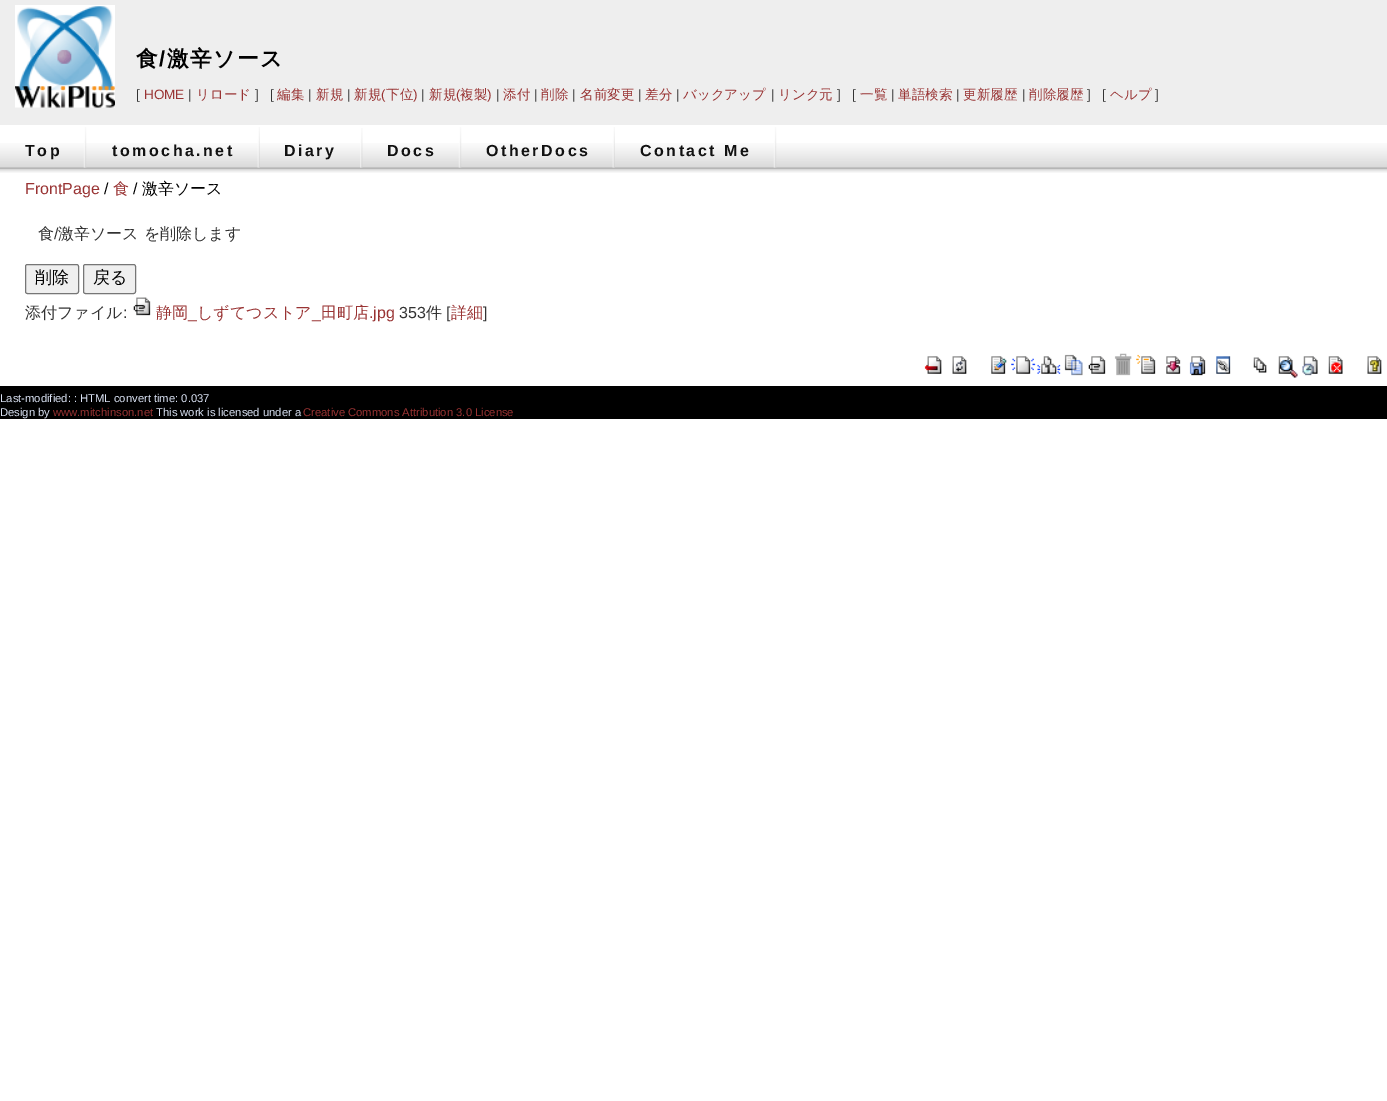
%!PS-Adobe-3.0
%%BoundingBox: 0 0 1387 1101
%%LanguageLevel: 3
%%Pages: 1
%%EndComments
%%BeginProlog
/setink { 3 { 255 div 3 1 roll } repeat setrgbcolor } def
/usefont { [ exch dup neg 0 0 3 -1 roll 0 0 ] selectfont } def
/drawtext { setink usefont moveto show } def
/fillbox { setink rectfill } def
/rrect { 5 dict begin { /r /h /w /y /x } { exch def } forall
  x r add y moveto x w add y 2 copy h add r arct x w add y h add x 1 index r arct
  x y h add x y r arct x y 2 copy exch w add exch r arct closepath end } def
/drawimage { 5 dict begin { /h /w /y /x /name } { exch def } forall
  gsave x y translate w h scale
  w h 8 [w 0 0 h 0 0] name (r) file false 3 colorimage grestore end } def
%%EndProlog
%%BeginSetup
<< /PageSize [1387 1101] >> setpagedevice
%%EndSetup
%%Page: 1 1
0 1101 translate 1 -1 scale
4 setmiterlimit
0 0 1387 1101 255 255 255 fillbox
0 0 1387 125 238 238 238 fillbox
(assets/img1.rgb) 15 5 100 103 drawimage
/WenQuanYiZenHei-Bold 21.75 usefont
0 0 0 setink
136 66 moveto 1.25 0 (食) ashow
/LiberationSans-Bold 21.75 usefont
159 66 moveto 1.25 0 (/) ashow
/WenQuanYiZenHei-Bold 21.75 usefont
167 66 moveto 1.25 0 (激辛ソース) ashow
([) 136 99 /LiberationSans-Regular 13.5 51 51 51 drawtext
(HOME) 144 99 /LiberationSans-Regular 13.5 153 51 51 drawtext
(|) 188 99 /LiberationSans-Regular 13.5 51 51 51 drawtext
(リロード) 196 99 /WenQuanYiZenHei-Medium 13.5 153 51 51 drawtext
(]) 255 99 /LiberationSans-Regular 13.5 51 51 51 drawtext
([) 270 99 /LiberationSans-Regular 13.5 51 51 51 drawtext
(編集) 277 99 /WenQuanYiZenHei-Medium 13.5 153 51 51 drawtext
(|) 308 99 /LiberationSans-Regular 13.5 51 51 51 drawtext
(新規) 316 99 /WenQuanYiZenHei-Medium 13.5 153 51 51 drawtext
(|) 347 99 /LiberationSans-Regular 13.5 51 51 51 drawtext
(新規) 354 99 /WenQuanYiZenHei-Medium 13.5 153 51 51 drawtext
(\() 381 99 /LiberationSans-Regular 13.5 153 51 51 drawtext
(下位) 386 99 /WenQuanYiZenHei-Medium 13.5 153 51 51 drawtext
(\)) 413 99 /LiberationSans-Regular 13.5 153 51 51 drawtext
(|) 421 99 /LiberationSans-Regular 13.5 51 51 51 drawtext
(新規) 429 99 /WenQuanYiZenHei-Medium 13.5 153 51 51 drawtext
(\() 456 99 /LiberationSans-Regular 13.5 153 51 51 drawtext
(複製) 460 99 /WenQuanYiZenHei-Medium 13.5 153 51 51 drawtext
(\)) 487 99 /LiberationSans-Regular 13.5 153 51 51 drawtext
(|) 496 99 /LiberationSans-Regular 13.5 51 51 51 drawtext
(添付) 503 99 /WenQuanYiZenHei-Medium 13.5 153 51 51 drawtext
(|) 534 99 /LiberationSans-Regular 13.5 51 51 51 drawtext
(削除) 541 99 /WenQuanYiZenHei-Medium 13.5 153 51 51 drawtext
(|) 572 99 /LiberationSans-Regular 13.5 51 51 51 drawtext
(名前変更) 580 99 /WenQuanYiZenHei-Medium 13.5 153 51 51 drawtext
(|) 638 99 /LiberationSans-Regular 13.5 51 51 51 drawtext
(差分) 645 99 /WenQuanYiZenHei-Medium 13.5 153 51 51 drawtext
(|) 676 99 /LiberationSans-Regular 13.5 51 51 51 drawtext
(バックアップ) 683 99 /WenQuanYiZenHei-Medium 13.5 153 51 51 drawtext
(|) 771 99 /LiberationSans-Regular 13.5 51 51 51 drawtext
(リンク元) 778 99 /WenQuanYiZenHei-Medium 13.5 153 51 51 drawtext
(]) 837 99 /LiberationSans-Regular 13.5 51 51 51 drawtext
([) 852 99 /LiberationSans-Regular 13.5 51 51 51 drawtext
(一覧) 860 99 /WenQuanYiZenHei-Medium 13.5 153 51 51 drawtext
(|) 891 99 /LiberationSans-Regular 13.5 51 51 51 drawtext
(単語検索) 898 99 /WenQuanYiZenHei-Medium 13.5 153 51 51 drawtext
(|) 956 99 /LiberationSans-Regular 13.5 51 51 51 drawtext
(更新履歴) 963 99 /WenQuanYiZenHei-Medium 13.5 153 51 51 drawtext
(|) 1022 99 /LiberationSans-Regular 13.5 51 51 51 drawtext
(削除履歴) 1029 99 /WenQuanYiZenHei-Medium 13.5 153 51 51 drawtext
(]) 1087 99 /LiberationSans-Regular 13.5 51 51 51 drawtext
([) 1102 99 /LiberationSans-Regular 13.5 51 51 51 drawtext
(ヘルプ) 1110 99 /WenQuanYiZenHei-Medium 13.5 153 51 51 drawtext
(]) 1155 99 /LiberationSans-Regular 13.5 51 51 51 drawtext
(assets/img2.rgb) 0 143 1387 30 drawimage
(assets/img3.rgb) 83 127 4 41 drawimage
/LiberationSans-Bold 16 usefont
17 17 17 setink
25 156 moveto 2.5 0 (Top) ashow
(assets/img4.rgb) 257 127 3 41 drawimage
112 156 moveto 2.5 0 (tomocha.net) ashow
(assets/img5.rgb) 360 128 3 40 drawimage
284 156 moveto 2.5 0 (Diary) ashow
(assets/img3.rgb) 458 127 4 41 drawimage
387 156 moveto 2.5 0 (Docs) ashow
(assets/img4.rgb) 612 127 3 41 drawimage
486 156 moveto 2.5 0 (OtherDocs) ashow
(assets/img3.rgb) 773 127 4 41 drawimage
640 156 moveto 2.5 0 (Contact Me) ashow
(FrontPage) 25 194 /LiberationSans-Regular 16 153 51 51 drawtext
(/) 104 194 /LiberationSans-Regular 16 0 0 0 drawtext
(食) 113 194 /WenQuanYiZenHei-Medium 16 153 51 51 drawtext
(/) 133 194 /LiberationSans-Regular 16 0 0 0 drawtext
(激辛ソース) 142 194 /WenQuanYiZenHei-Medium 16 0 0 0 drawtext
(食) 38 239 /WenQuanYiZenHei-Medium 16 51 51 51 drawtext
(/) 54 239 /LiberationSans-Regular 16 51 51 51 drawtext
(激辛ソース を削除します) 58 239 /WenQuanYiZenHei-Medium 16 51 51 51 drawtext
239 239 239 setink
25.5 264.5 53 29 2 rrect gsave fill grestore
118 118 118 setink
stroke
(削除) 35 283 /WenQuanYiZenHei-Medium 17 0 0 0 drawtext
239 239 239 setink
83.5 264.5 52 29 2 rrect gsave fill grestore
118 118 118 setink
stroke
(戻る) 93 283 /WenQuanYiZenHei-Medium 17 0 0 0 drawtext
(添付ファイル) 25 318 /WenQuanYiZenHei-Medium 16 51 51 51 drawtext
(:) 123 318 /LiberationSans-Regular 16 51 51 51 drawtext
(assets/img6.rgb) 133 297 18 19 drawimage
(静岡) 156 318 /WenQuanYiZenHei-Medium 16 153 51 51 drawtext
(しずてつストア) 197 318 /WenQuanYiZenHei-Medium 16 153 51 51 drawtext
(田町店) 321 318 /WenQuanYiZenHei-Medium 16 153 51 51 drawtext
(.jpg) 369 318 /LiberationSans-Regular 16 153 51 51 drawtext
(353) 399 318 /LiberationSans-Regular 16 51 51 51 drawtext
(件) 426 318 /WenQuanYiZenHei-Medium 16 51 51 51 drawtext
([) 446 318 /LiberationSans-Regular 16 51 51 51 drawtext
(詳細) 451 318 /WenQuanYiZenHei-Medium 16 153 51 51 drawtext
(]) 483 318 /LiberationSans-Regular 16 51 51 51 drawtext
(_) 188 318 /LiberationSans-Regular 16 153 51 51 drawtext
(_) 312 318 /LiberationSans-Regular 16 153 51 51 drawtext
(assets/img7.rgb) 924 356 18 18 drawimage
(assets/img8.rgb) 952 356 15 18 drawimage
(assets/img9.rgb) 991 356 16 18 drawimage
(assets/img10.rgb) 1011 356 25 18 drawimage
(assets/img11.rgb) 1037 356 24 18 drawimage
(assets/img12.rgb) 1064 354 19 22 drawimage
(assets/img13.rgb) 1088 356 18 18 drawimage
(assets/img14.rgb) 1114 353 18 23 drawimage
(assets/img15.rgb) 1136 354 20 20 drawimage
(assets/img16.rgb) 1166 356 15 18 drawimage
(assets/img17.rgb) 1189 356 17 20 drawimage
(assets/img18.rgb) 1216 356 15 18 drawimage
(assets/img19.rgb) 1253 357 14 16 drawimage
(assets/img20.rgb) 1278 356 20 22 drawimage
(assets/img21.rgb) 1302 356 16 20 drawimage
(assets/img22.rgb) 1328 356 15 18 drawimage
(assets/img23.rgb) 1367 356 15 18 drawimage
0 386 1387 33 0 0 0 fillbox
(Last-modified: : HTML convert time: 0.037) 0 402 /LiberationSans-Regular 11.25 220 228 246 drawtext
(Design by) 0 416 /LiberationSans-Regular 11.25 220 228 246 drawtext
(www.mitchinson.net) 53 416 /LiberationSans-Regular 11.25 153 51 51 drawtext
(This work is licensed under a) 156 416 /LiberationSans-Regular 11.25 220 228 246 drawtext
(Creative Commons Attribution 3.0 License) 303 416 /LiberationSans-Regular 11.25 153 51 51 drawtext
showpage
%%EOF
